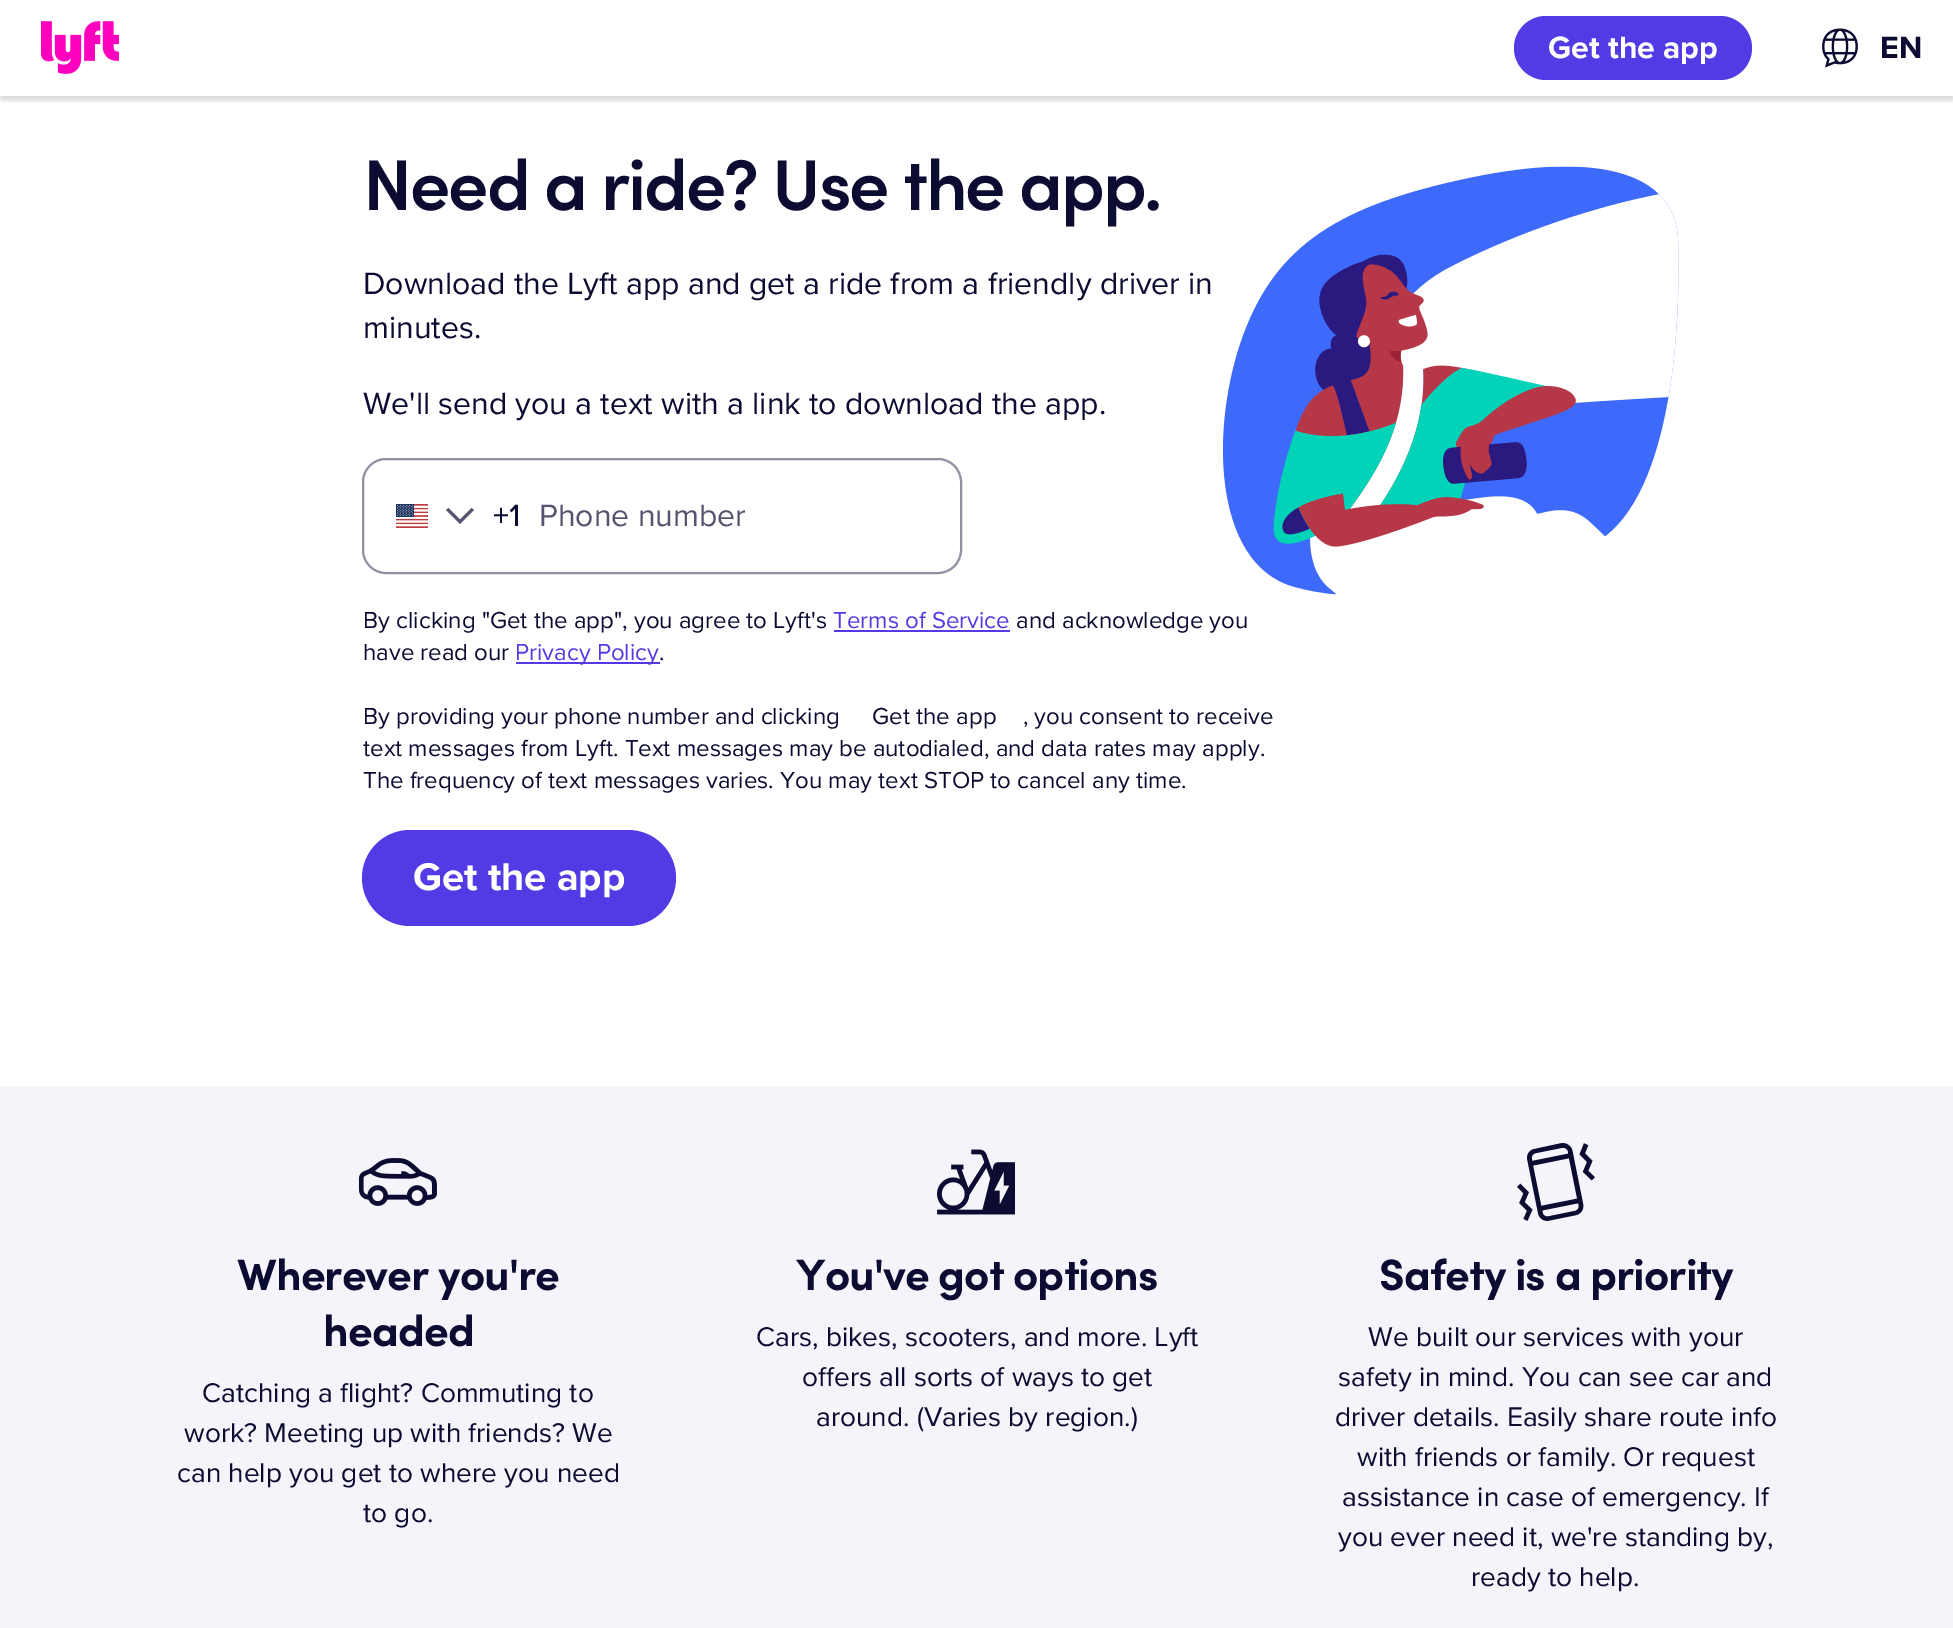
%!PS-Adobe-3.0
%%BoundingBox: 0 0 1953 1628
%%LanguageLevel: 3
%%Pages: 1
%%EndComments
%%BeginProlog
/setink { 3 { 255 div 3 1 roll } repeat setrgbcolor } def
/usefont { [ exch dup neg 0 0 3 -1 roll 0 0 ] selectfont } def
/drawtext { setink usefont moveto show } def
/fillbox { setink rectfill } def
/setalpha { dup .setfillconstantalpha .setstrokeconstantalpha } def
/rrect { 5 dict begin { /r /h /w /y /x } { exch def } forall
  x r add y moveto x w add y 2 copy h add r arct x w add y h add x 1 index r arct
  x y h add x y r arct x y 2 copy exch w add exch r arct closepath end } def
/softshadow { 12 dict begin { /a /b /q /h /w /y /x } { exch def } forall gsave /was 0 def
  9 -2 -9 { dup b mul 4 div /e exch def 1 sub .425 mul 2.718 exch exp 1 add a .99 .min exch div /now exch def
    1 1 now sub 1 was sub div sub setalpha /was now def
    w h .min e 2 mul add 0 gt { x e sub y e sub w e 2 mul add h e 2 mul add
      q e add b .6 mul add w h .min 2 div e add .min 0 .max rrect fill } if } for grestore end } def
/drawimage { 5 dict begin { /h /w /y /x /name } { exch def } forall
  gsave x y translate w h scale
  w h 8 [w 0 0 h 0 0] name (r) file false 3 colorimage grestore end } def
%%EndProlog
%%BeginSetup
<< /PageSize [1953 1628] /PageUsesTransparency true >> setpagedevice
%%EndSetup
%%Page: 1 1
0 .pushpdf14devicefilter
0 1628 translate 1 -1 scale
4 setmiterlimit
0 0 1953 1628 255 255 255 fillbox
gsave
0 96 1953 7 rectclip
0 0 0 setink
0 4 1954 96 0 3 0.16 softshadow
grestore
(assets/img1.rgb) 41 21 78 53 drawimage
82 59 228 setink
1514 16 238 64 32 rrect fill
(Get the app) 1548 58 /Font-Bold 32 255 255 255 drawtext
(assets/img2.rgb) 1822 28 36 40 drawimage
(EN) 1880 58 /Font-Bold 32 12 11 49 drawtext
(Need a ride? Use the app.) 363 210 /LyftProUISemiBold-SemiBold 72 12 11 49 drawtext
(Download the Lyft app and get a ride from a friendly driver in) 363 294 /Font-Regular 32 12 11 49 drawtext
(minutes.) 363 338 /Font-Regular 32 12 11 49 drawtext
(We'll send you a text with a link to download the app.) 363 414 /Font-Regular 32 12 11 49 drawtext
146 145 162 setink
2 setlinewidth
363 459 598 114 23 rrect stroke
(assets/img3.rgb) 396 504 32 24 drawimage
85 84 111 setink
460 524 moveto 446 510 lineto 448.5 508 lineto 460 519.5 lineto 471.5 508 lineto 474 510 lineto closepath fill
(+1) 493 526 /Font-Medium 32 12 11 49 drawtext
(Phone number) 539 526 /Font-Regular 32 85 84 111 drawtext
(By clicking "Get the app", you agree to Lyft's) 363 628 /Font-Regular 24 12 11 49 drawtext
(Terms of Service) 833 628 /Font-Regular 24 82 59 228 drawtext
834 630 176 2 82 59 228 fillbox
(and acknowledge you) 1016 628 /Font-Regular 24 12 11 49 drawtext
(have read our) 363 660 /Font-Regular 24 12 11 49 drawtext
516 662 144 2 82 59 228 fillbox
(Privacy Policy) 515 660 /Font-Regular 24 82 59 228 drawtext
(.) 659 660 /Font-Regular 24 12 11 49 drawtext
(By providing your phone number and clicking “Get the app”, you consent to receive) 363 724 /Font-Regular 24 12 11 49 drawtext
(text messages from Lyft. Text messages may be autodialed, and data rates may apply.) 363 756 /Font-Regular 24 12 11 49 drawtext
(The frequency of text messages varies. You may text STOP to cancel any time.) 363 788 /Font-Regular 24 12 11 49 drawtext
82 59 228 setink
362 830 314 96 48 rrect fill
(Get the app) 413 890 /Font-Bold 40 255 255 255 drawtext
(assets/img4.rgb) 1223 166 456 429 drawimage
0 1086 1953 542 245 244 250 fillbox
(assets/img5.rgb) 359 1158 78 48 drawimage
(Wherever you're) 237 1290 /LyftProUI-Bold 44 12 11 49 drawtext
(headed) 323 1346 /LyftProUI-Bold 44 12 11 49 drawtext
(Catching a flight? Commuting to) 202 1402 /Font-Regular 28 12 11 49 drawtext
(work? Meeting up with friends? We) 184 1442 /Font-Regular 28 12 11 49 drawtext
(can help you get to where you need) 177 1482 /Font-Regular 28 12 11 49 drawtext
(to go.) 363 1522 /Font-Regular 28 12 11 49 drawtext
(assets/img6.rgb) 937 1149 78 66 drawimage
(You've got options) 796 1290 /LyftProUI-Bold 44 12 11 49 drawtext
(Cars, bikes, scooters, and more. Lyft) 756 1346 /Font-Regular 28 12 11 49 drawtext
(offers all sorts of ways to get) 802 1386 /Font-Regular 28 12 11 49 drawtext
(around. \(Varies by region.\)) 816 1426 /Font-Regular 28 12 11 49 drawtext
(assets/img7.rgb) 1517 1143 78 78 drawimage
(Safety is a priority) 1379 1290 /LyftProUI-Bold 44 12 11 49 drawtext
(We built our services with your) 1368 1346 /Font-Regular 28 12 11 49 drawtext
(safety in mind. You can see car and) 1338 1386 /Font-Regular 28 12 11 49 drawtext
(driver details. Easily share route info) 1335 1426 /Font-Regular 28 12 11 49 drawtext
(with friends or family. Or request) 1357 1466 /Font-Regular 28 12 11 49 drawtext
(assistance in case of emergency. If) 1342 1506 /Font-Regular 28 12 11 49 drawtext
(you ever need it, we're standing by,) 1338 1546 /Font-Regular 28 12 11 49 drawtext
(ready to help.) 1471 1586 /Font-Regular 28 12 11 49 drawtext
.poppdf14devicefilter showpage
%%EOF
